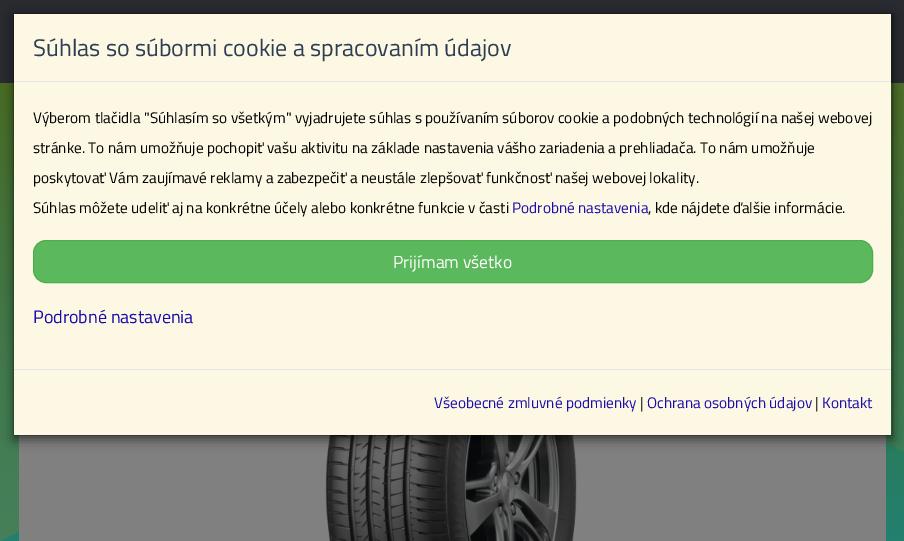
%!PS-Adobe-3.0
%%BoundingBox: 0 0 904 541
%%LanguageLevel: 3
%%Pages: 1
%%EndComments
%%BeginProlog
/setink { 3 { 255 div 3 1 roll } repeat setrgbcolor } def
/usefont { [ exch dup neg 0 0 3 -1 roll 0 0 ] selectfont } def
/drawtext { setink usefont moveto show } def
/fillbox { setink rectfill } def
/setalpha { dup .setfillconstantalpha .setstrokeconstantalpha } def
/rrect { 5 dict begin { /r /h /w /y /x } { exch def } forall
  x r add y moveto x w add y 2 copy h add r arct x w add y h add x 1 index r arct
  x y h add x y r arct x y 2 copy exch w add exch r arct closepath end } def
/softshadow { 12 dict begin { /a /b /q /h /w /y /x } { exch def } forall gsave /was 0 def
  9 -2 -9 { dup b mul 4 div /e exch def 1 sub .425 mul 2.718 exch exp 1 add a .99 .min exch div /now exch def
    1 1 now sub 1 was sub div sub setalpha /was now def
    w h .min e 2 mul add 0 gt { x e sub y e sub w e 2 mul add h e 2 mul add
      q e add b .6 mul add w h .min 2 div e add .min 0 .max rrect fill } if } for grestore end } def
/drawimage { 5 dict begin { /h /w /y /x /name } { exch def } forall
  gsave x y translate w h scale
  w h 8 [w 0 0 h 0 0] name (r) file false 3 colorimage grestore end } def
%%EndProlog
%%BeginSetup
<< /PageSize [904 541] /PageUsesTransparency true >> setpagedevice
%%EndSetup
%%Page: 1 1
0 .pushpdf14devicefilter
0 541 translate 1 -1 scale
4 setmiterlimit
0 0 904 541 255 255 255 fillbox
(assets/img1.rgb) 0 83 904 1 drawimage
0 0 904 83 41 43 49 fillbox
(assets/img2.rgb) 0 84 904 457 drawimage
19 435 867 106 128 128 128 fillbox
(assets/img3.rgb) 325 435 252 106 drawimage
0 0 0 setink
13 16 880 424 0 5.5 0.5 softshadow
0.2 setalpha
13.5 13.5 879 422 rectstroke
1 setalpha
14 14 877 355 252 248 227 fillbox
14 81 877 1 229 229 229 fillbox
(Súhlas so súbormi cookie a spracovaním údajov) 33 56 /TitilliumWeb-Regular 24 45 62 82 drawtext
(Výberom tlačidla "Súhlasím so všetkým" vyjadrujete súhlas s používaním súborov cookie a podobných technológií na našej webovej) 33 123 /TitilliumWeb-Regular 15.3 0 0 0 drawtext
(stránke. To nám umožňuje pochopiť vašu aktivitu na základe nastavenia vášho zariadenia a prehliadača. To nám umožňuje) 33 153 /TitilliumWeb-Regular 15.3 0 0 0 drawtext
(poskytovať Vám zaujímavé reklamy a zabezpečiť a neustále zlepšovať funkčnosť našej webovej lokality.) 33 183 /TitilliumWeb-Regular 15.3 0 0 0 drawtext
(Súhlas môžete udeliť aj na konkrétne účely alebo konkrétne funkcie v časti) 33 213 /TitilliumWeb-Regular 15.3 0 0 0 drawtext
(Podrobné nastavenia) 512 213 /TitilliumWeb-Regular 15.3 26 13 171 drawtext
(, kde nájdete ďalšie informácie.) 648 213 /TitilliumWeb-Regular 15.3 0 0 0 drawtext
92 184 92 setink
33.5 240.5 839 42 12.5 rrect gsave fill grestore
76 174 76 setink
stroke
(Prijímam všetko) 393 268 /TitilliumWeb-Regular 17.5 255 255 255 drawtext
(Podrobné nastavenia) 33 323 /TitilliumWeb-Regular 18 26 13 171 drawtext
14 370 877 65 252 248 227 fillbox
14 369 877 1 229 229 229 fillbox
(Všeobecné zmluvné podmienky) 434 408 /TitilliumWeb-Regular 15.3 26 13 171 drawtext
(|) 640 408 /TitilliumWeb-Regular 15.3 0 0 0 drawtext
(Ochrana osobných údajov) 647 408 /TitilliumWeb-Regular 15.3 26 13 171 drawtext
(|) 815 408 /TitilliumWeb-Regular 15.3 0 0 0 drawtext
(Kontakt) 822 408 /TitilliumWeb-Regular 15.3 26 13 171 drawtext
.poppdf14devicefilter showpage
%%EOF
